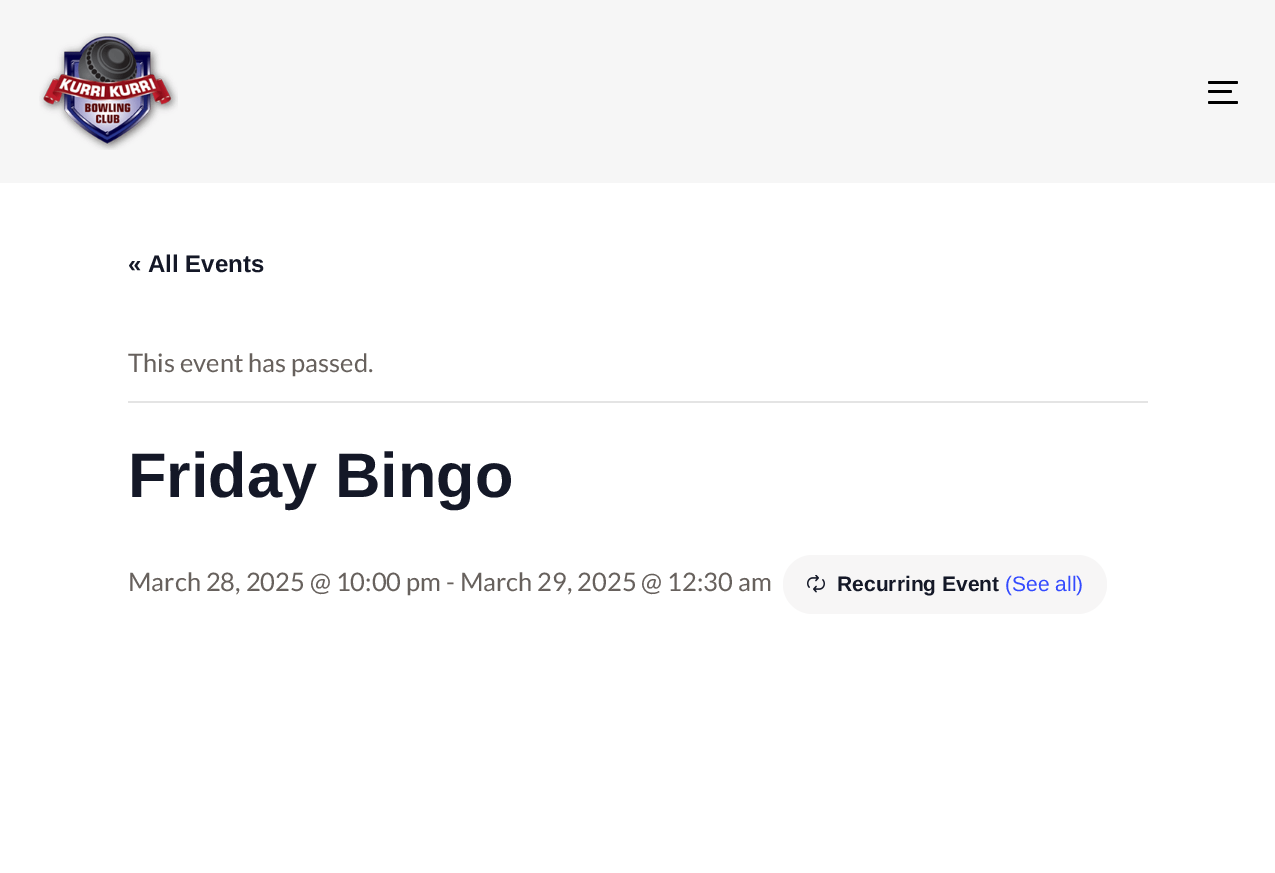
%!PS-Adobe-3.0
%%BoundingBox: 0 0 1275 873
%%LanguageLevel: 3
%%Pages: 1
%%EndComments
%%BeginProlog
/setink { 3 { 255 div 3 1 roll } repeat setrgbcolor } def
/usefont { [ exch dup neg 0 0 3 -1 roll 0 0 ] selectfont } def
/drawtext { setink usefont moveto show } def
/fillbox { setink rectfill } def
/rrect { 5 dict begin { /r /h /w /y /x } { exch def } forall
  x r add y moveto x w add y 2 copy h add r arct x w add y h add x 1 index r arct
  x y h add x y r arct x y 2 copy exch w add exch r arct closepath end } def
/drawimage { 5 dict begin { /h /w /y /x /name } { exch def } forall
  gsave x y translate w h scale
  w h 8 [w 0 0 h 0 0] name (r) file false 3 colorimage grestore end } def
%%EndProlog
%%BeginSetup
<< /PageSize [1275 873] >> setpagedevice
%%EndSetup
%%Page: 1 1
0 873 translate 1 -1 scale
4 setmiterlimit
0 0 1275 873 255 255 255 fillbox
0 0 1275 183 246 246 246 fillbox
(assets/img1.rgb) 39 33 139 117 drawimage
0 0 0 setink
1208 81 30 3 1.5 rrect fill
1208 90 24 3 1.5 rrect fill
1208 101 30 3 1.5 rrect fill
(« All Events) 128 272 /LiberationSans-Bold 24 20 24 39 drawtext
128 401 1020 2 228 228 228 fillbox
(This event has passed.) 128 372 /Lato-Regular 25.5 103 97 93 drawtext
(Friday Bingo) 128 497 /LiberationSans-Bold 63 20 24 39 drawtext
(March 28, 2025 @ 10:00 pm - March 29, 2025 @ 12:30 am) 128 591 /Lato-Regular 25.5 103 97 93 drawtext
247 246 246 setink
783 555 324 59 29.5 rrect fill
(assets/img2.rgb) 807 575 18 18 drawimage
(Recurring Event) 837 591 /LiberationSans-Bold 21 20 24 39 drawtext
(\(See all\)) 1005 591 /LiberationSans-Regular 21 51 74 255 drawtext
showpage
%%EOF
